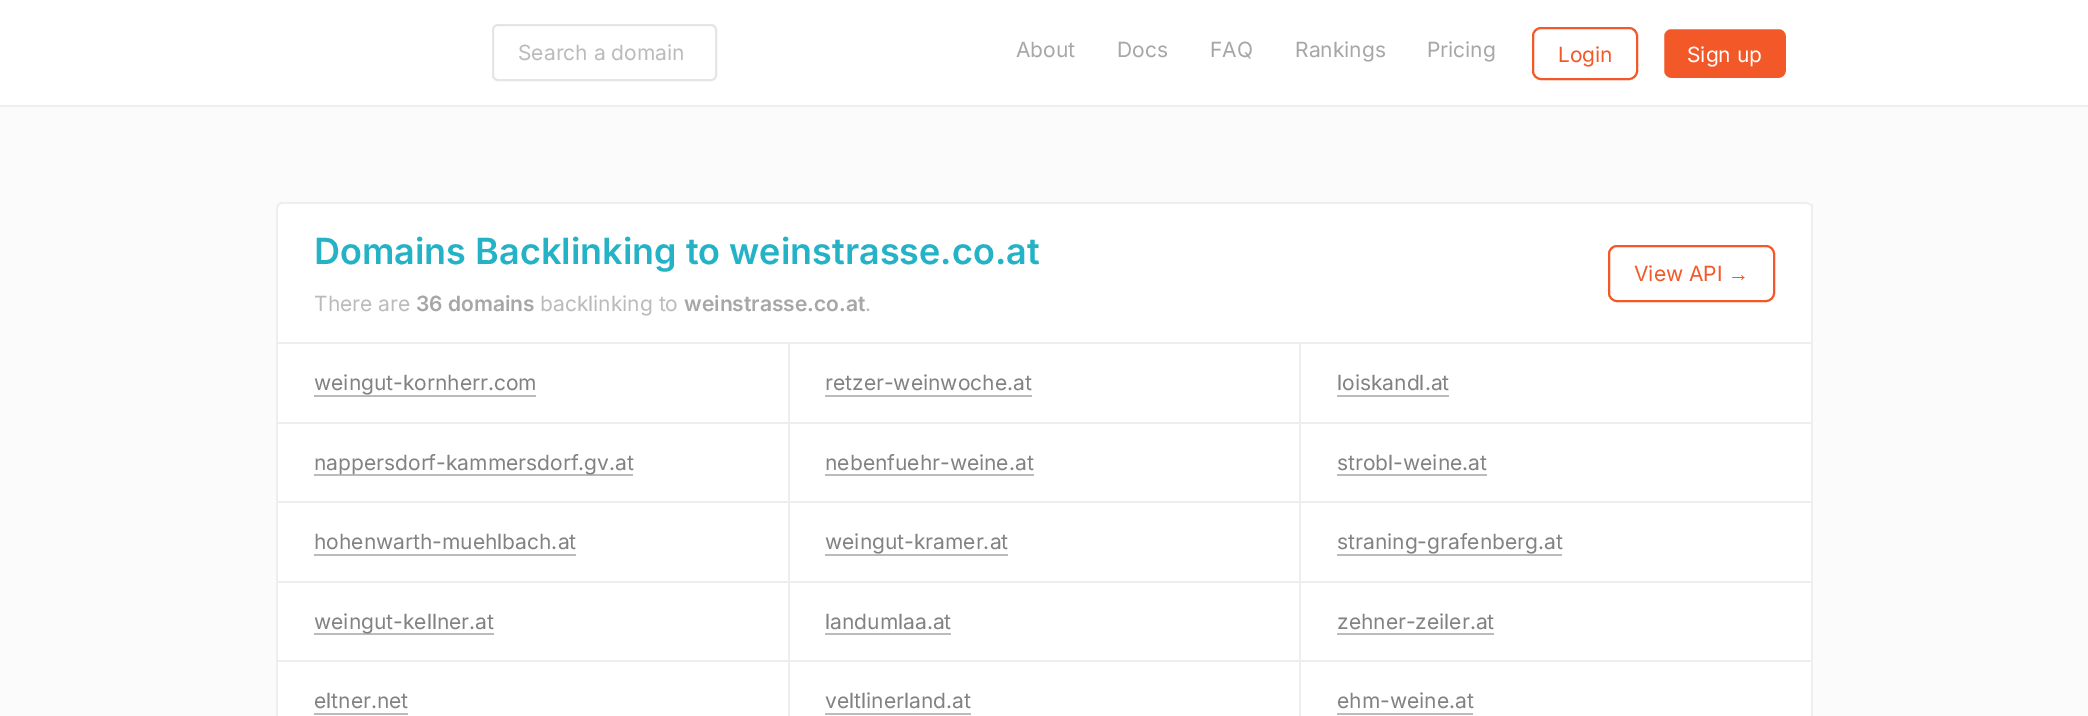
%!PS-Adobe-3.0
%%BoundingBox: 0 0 2088 716
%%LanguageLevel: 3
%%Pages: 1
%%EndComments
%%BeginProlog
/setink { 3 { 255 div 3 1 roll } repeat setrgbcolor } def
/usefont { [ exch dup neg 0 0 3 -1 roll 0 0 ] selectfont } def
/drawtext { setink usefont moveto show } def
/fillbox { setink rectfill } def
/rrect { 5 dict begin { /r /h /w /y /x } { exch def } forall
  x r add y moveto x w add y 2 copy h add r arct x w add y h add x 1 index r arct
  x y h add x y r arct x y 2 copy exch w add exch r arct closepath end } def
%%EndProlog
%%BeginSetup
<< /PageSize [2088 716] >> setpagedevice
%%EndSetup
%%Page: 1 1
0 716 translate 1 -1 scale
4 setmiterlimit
0 0 2088 716 255 255 255 fillbox
229 229 229 setink
2 setlinewidth
493 25 223 55 5 rrect stroke
(Search a domain) 518 60 /Inter-Regular 21 187 187 187 drawtext
(About) 1016 57 /Inter-Regular 21 167 167 167 drawtext
(Docs) 1117 57 /Inter-Regular 21 167 167 167 drawtext
(FAQ) 1210 57 /Inter-Regular 21 167 167 167 drawtext
(Rankings) 1295 57 /Inter-Regular 21 167 167 167 drawtext
(Pricing) 1427 57 /Inter-Regular 21 167 167 167 drawtext
243 89 40 setink
1533 28 104 51 8 rrect stroke
(Login) 1558 62 /Inter-Regular 21 243 89 40 drawtext
1663 28 124 51 8 rrect gsave fill grestore
255 255 255 setink
stroke
(Sign up) 1687 62 /Inter-Regular 21 255 255 255 drawtext
0 107 2088 609 251 251 251 fillbox
0 105 2088 2 238 238 238 fillbox
255 255 255 setink
282 204 moveto 1806 204 lineto 1809 204 1812 206 1812 208 curveto 1812 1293 lineto 1812 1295 1809 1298 1806 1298 curveto 282 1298 lineto 280 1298 278 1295 278 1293 curveto 278 208 lineto 278 206 280 204 282 204 curveto closepath fill
238 238 238 setink
282 202 moveto 1806 202 lineto 1809 202 1812 205 1812 208 curveto 1812 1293 lineto 1812 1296 1809 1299 1806 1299 curveto 282 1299 lineto 279 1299 276 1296 276 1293 curveto 276 208 lineto 276 205 279 202 282 202 curveto closepath 282 204 moveto 1806 204 lineto 1809 204 1812 206 1812 208 curveto 1812 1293 lineto 1812 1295 1809 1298 1806 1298 curveto 282 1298 lineto 280 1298 278 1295 278 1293 curveto 278 208 lineto 278 206 280 204 282 204 curveto closepath eofill
1811 204 2 219 238 238 238 fillbox
278 342 1534 2 238 238 238 fillbox
(Domains Backlinking to weinstrasse.co.at) 314 264 /Inter-SemiBold 36 36 178 198 drawtext
(There are) 314 311 /Inter-Regular 21 187 187 187 drawtext
(36 domains) 416 311 /Inter-SemiBold 21 167 167 167 drawtext
(backlinking to) 540 311 /Inter-Regular 21 187 187 187 drawtext
(weinstrasse.co.at) 684 311 /Inter-SemiBold 21 167 167 167 drawtext
(.) 865 311 /Inter-Regular 21 187 187 187 drawtext
243 89 40 setink
1609 246 165 55 8 rrect stroke
(View API) 1634 281 /Inter-Regular 21 243 89 40 drawtext
(→) 1728 281 /LiberationSans-Regular 21 243 89 40 drawtext
788 344 2 79 238 238 238 fillbox
278 422 511 2 238 238 238 fillbox
(weingut-kornherr.com) 314 390 /Inter-Regular 21 130 130 130 drawtext
314 395 222 2 187 187 187 fillbox
1299 344 2 79 238 238 238 fillbox
789 422 1023 2 238 238 238 fillbox
(retzer-weinwoche.at) 825 390 /Inter-Regular 21 130 130 130 drawtext
825 395 207 2 187 187 187 fillbox
(loiskandl.at) 1337 390 /Inter-Regular 21 130 130 130 drawtext
1337 395 112 2 187 187 187 fillbox
788 423 2 159 238 238 238 fillbox
278 501 511 2 238 238 238 fillbox
314 474 319 2 187 187 187 fillbox
(nappersdorf-kammersdorf.gv.at) 314 470 /Inter-Regular 21 130 130 130 drawtext
1299 423 2 159 238 238 238 fillbox
789 501 512 2 238 238 238 fillbox
(nebenfuehr-weine.at) 825 470 /Inter-Regular 21 130 130 130 drawtext
825 474 209 2 187 187 187 fillbox
1811 423 2 159 238 238 238 fillbox
1301 501 511 2 238 238 238 fillbox
(strobl-weine.at) 1337 470 /Inter-Regular 21 130 130 130 drawtext
1337 474 150 2 187 187 187 fillbox
278 581 1534 2 238 238 238 fillbox
(hohenwarth-muehlbach.at) 314 549 /Inter-Regular 21 130 130 130 drawtext
314 554 262 2 187 187 187 fillbox
(weingut-kramer.at) 825 549 /Inter-Regular 21 130 130 130 drawtext
825 554 183 2 187 187 187 fillbox
(straning-grafenberg.at) 1337 549 /Inter-Regular 21 130 130 130 drawtext
1337 554 225 2 187 187 187 fillbox
788 582 2 134 238 238 238 fillbox
278 660 511 2 238 238 238 fillbox
314 633 180 2 187 187 187 fillbox
(weingut-kellner.at) 314 629 /Inter-Regular 21 130 130 130 drawtext
1299 582 2 134 238 238 238 fillbox
789 660 512 2 238 238 238 fillbox
(landumlaa.at) 825 629 /Inter-Regular 21 130 130 130 drawtext
825 633 126 2 187 187 187 fillbox
1811 582 2 134 238 238 238 fillbox
1301 660 511 2 238 238 238 fillbox
(zehner-zeiler.at) 1337 629 /Inter-Regular 21 130 130 130 drawtext
1337 633 157 2 187 187 187 fillbox
(eltner.net) 314 708 /Inter-Regular 21 130 130 130 drawtext
314 713 94 2 187 187 187 fillbox
(veltlinerland.at) 825 708 /Inter-Regular 21 130 130 130 drawtext
825 713 146 2 187 187 187 fillbox
(ehm-weine.at) 1337 708 /Inter-Regular 21 130 130 130 drawtext
1337 713 136 2 187 187 187 fillbox
showpage
%%EOF
